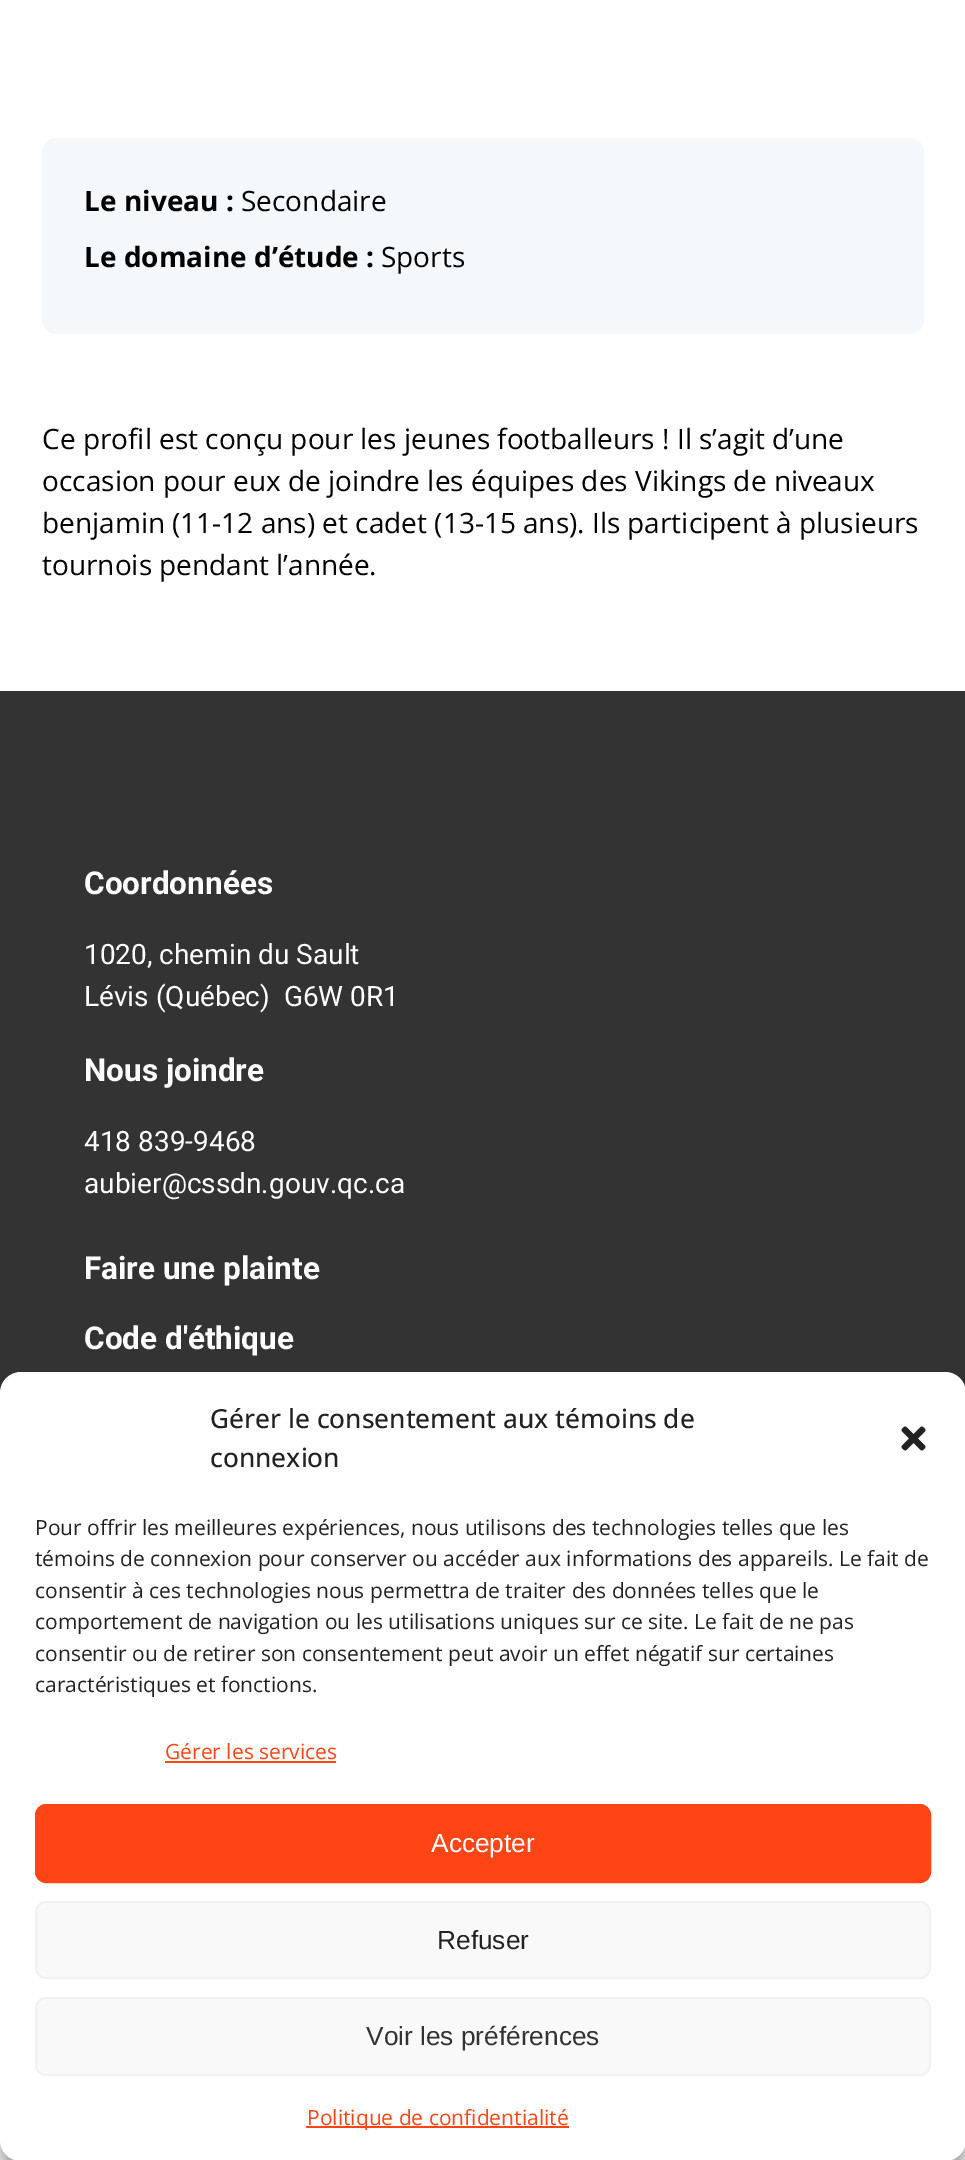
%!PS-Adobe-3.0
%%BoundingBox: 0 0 965 2160
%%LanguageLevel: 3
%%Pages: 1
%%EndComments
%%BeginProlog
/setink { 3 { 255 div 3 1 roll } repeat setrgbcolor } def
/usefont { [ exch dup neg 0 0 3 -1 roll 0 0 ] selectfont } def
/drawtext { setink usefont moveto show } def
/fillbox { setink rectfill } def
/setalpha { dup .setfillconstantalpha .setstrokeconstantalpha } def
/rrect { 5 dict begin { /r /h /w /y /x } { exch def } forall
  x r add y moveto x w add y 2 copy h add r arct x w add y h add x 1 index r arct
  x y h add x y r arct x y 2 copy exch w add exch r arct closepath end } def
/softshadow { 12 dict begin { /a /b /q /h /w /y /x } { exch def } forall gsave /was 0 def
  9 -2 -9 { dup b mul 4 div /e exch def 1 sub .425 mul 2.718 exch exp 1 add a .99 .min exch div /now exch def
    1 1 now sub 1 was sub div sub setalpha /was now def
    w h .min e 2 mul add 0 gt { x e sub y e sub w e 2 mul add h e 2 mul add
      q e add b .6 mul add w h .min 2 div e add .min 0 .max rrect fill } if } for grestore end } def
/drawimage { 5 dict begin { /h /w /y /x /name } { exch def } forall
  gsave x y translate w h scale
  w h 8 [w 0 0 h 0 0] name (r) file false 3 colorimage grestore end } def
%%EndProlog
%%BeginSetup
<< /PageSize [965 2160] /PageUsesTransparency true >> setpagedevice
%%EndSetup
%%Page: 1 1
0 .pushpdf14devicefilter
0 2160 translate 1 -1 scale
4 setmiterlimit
0 0 965 2160 255 255 255 fillbox
244 248 251 setink
42 138 882 196 14 rrect fill
(Le niveau :) 84 211 /OpenSans-Bold 28 0 0 0 drawtext
(Secondaire) 241 211 /OpenSans-Regular 28 0 0 0 drawtext
(Le domaine d’étude :) 84 267 /OpenSans-Bold 28 0 0 0 drawtext
(Sports) 381 267 /OpenSans-Regular 28 0 0 0 drawtext
(Ce profil est conçu pour les jeunes footballeurs ! Il s’agit d’une) 42 449 /OpenSans-Regular 28 0 0 0 drawtext
(occasion pour eux de joindre les équipes des Vikings de niveaux) 42 491 /OpenSans-Regular 28 0 0 0 drawtext
(benjamin \(11-12 ans\) et cadet \(13-15 ans\). Ils participent à plusieurs) 42 533 /OpenSans-Regular 28 0 0 0 drawtext
(tournois pendant l’année.) 42 575 /OpenSans-Regular 28 0 0 0 drawtext
0 691 965 702 51 51 51 fillbox
(Coordonnées) 84 894 /Roboto-Bold 31.5 255 255 255 drawtext
(1020, chemin du Sault) 84 964 /Roboto-Regular 28 255 255 255 drawtext
(Lévis \(Québec\)  G6W 0R1) 84 1006 /Roboto-Regular 28 255 255 255 drawtext
(Nous joindre) 84 1081 /Roboto-Bold 31.5 255 255 255 drawtext
(418 839-9468) 84 1151 /Roboto-Regular 28 255 255 255 drawtext
(aubier@cssdn.gouv.qc.ca) 84 1193 /Roboto-Regular 28 255 255 255 drawtext
(Faire une plainte) 84 1279 /Roboto-Bold 31.5 255 255 255 drawtext
(Code d'éthique) 84 1349 /Roboto-Bold 31.5 255 255 255 drawtext
0 0 0 setink
0 1383 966 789 21 5 0.23 softshadow
0 1390 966 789 21 17.5 0.19 softshadow
255 255 255 setink
0 1372 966 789 21 rrect fill
(Gérer le consentement aux témoins de) 210 1428 /OpenSans-Medium 26.25 34 34 34 drawtext
(connexion) 210 1467 /OpenSans-Medium 26.25 34 34 34 drawtext
(assets/img1.rgb) 901 1426 25 25 drawimage
(Pour offrir les meilleures expériences, nous utilisons des technologies telles que les) 35 1535 /OpenSans-Regular 21 34 34 34 drawtext
(témoins de connexion pour conserver ou accéder aux informations des appareils. Le fait de) 35 1566 /OpenSans-Regular 21 34 34 34 drawtext
(consentir à ces technologies nous permettra de traiter des données telles que le) 35 1598 /OpenSans-Regular 21 34 34 34 drawtext
(comportement de navigation ou les utilisations uniques sur ce site. Le fait de ne pas) 35 1629 /OpenSans-Regular 21 34 34 34 drawtext
(consentir ou de retirer son consentement peut avoir un effet négatif sur certaines) 35 1661 /OpenSans-Regular 21 34 34 34 drawtext
(caractéristiques et fonctions.) 35 1692 /OpenSans-Regular 21 34 34 34 drawtext
(Gérer les services) 165 1759 /OpenSans-Regular 21 255 68 21 drawtext
165 1761 171 2 255 68 21 fillbox
36 1805 894 77 10 rrect gsave fill grestore
2 setlinewidth
stroke
(Accepter) 431 1852 /LiberationSans-Regular 26.25 255 255 255 drawtext
249 249 249 setink
36 1902 894 76 10 rrect gsave fill grestore
242 242 242 setink
stroke
(Refuser) 437 1949 /LiberationSans-Regular 26.25 34 34 34 drawtext
249 249 249 setink
36 1998 894 77 10 rrect gsave fill grestore
242 242 242 setink
stroke
(Voir les préférences) 366 2045 /LiberationSans-Regular 26.25 51 51 51 drawtext
306 2126 263 2 255 68 21 fillbox
(Politique de confidentialité) 307 2125 /OpenSans-Regular 21 255 68 21 drawtext
.poppdf14devicefilter showpage
%%EOF
